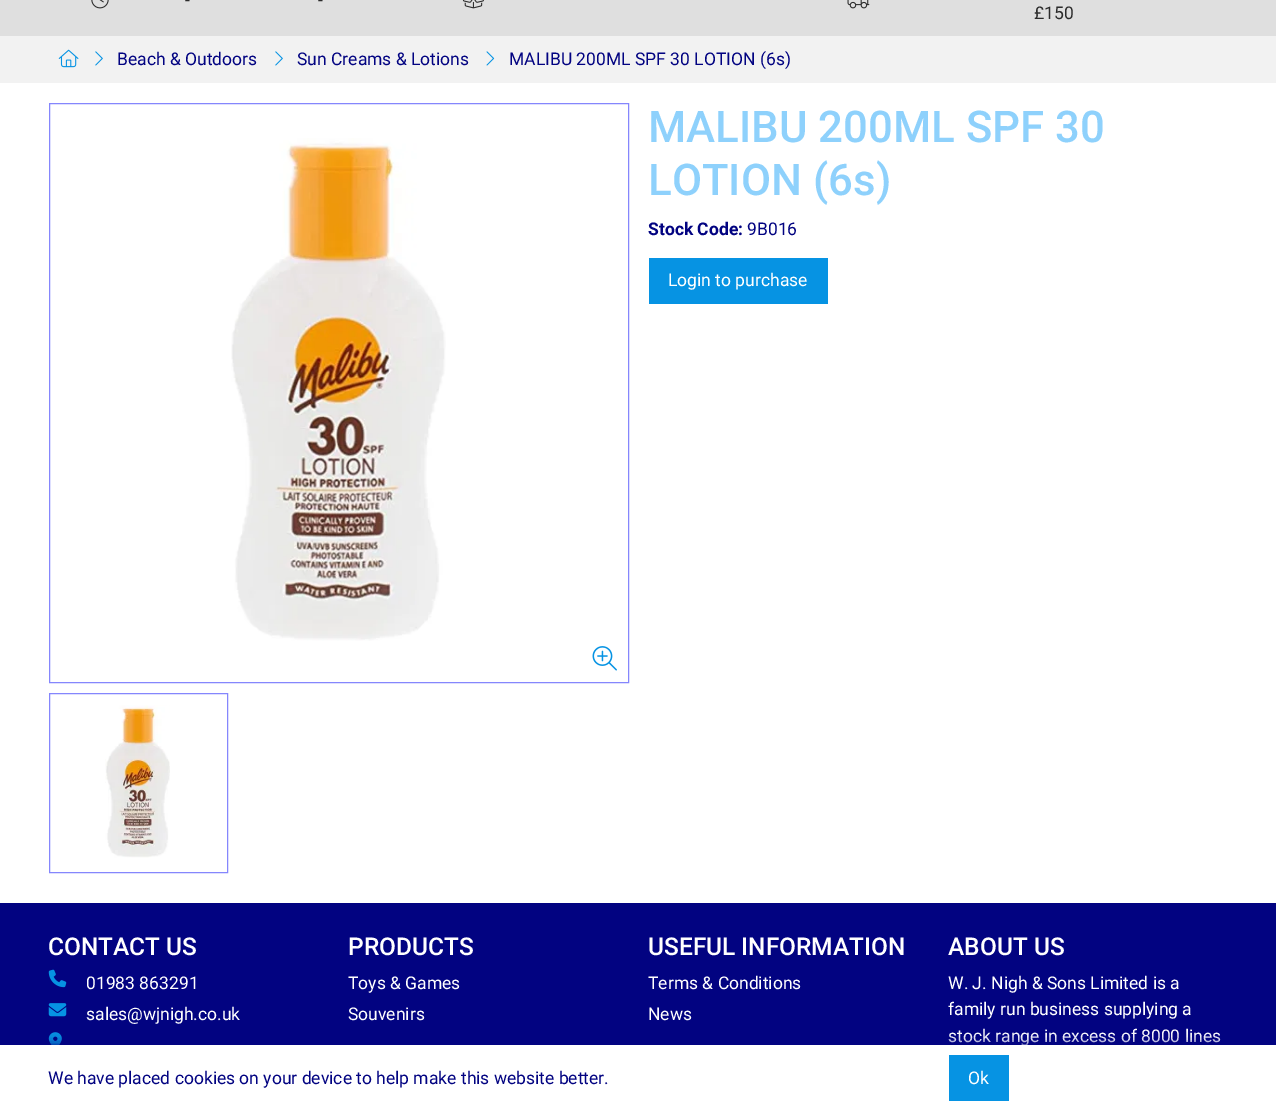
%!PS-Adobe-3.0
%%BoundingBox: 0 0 1276 1111
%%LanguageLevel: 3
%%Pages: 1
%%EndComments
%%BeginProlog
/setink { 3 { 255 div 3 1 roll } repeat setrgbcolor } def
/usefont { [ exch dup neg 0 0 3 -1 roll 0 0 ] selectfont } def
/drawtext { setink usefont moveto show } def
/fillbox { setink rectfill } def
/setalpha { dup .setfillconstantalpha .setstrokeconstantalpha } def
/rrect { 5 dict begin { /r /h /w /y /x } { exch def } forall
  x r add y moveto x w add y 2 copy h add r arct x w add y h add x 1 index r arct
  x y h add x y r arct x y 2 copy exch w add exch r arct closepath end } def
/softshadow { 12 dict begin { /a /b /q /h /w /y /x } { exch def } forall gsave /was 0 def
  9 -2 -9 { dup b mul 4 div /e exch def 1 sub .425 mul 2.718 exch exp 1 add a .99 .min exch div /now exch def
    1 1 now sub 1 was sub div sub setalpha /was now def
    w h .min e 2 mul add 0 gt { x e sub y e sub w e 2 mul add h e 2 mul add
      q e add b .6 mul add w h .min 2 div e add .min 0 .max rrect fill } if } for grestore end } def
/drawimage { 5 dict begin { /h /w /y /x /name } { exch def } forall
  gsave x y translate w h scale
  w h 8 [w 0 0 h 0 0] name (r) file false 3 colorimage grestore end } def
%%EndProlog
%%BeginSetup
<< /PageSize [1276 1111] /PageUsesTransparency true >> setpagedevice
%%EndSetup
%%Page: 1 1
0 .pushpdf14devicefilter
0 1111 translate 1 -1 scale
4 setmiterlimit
0 0 1276 1111 255 255 255 fillbox
0 0 1276 36 223 223 223 fillbox
(assets/img1.rgb) 91 0 18 9 drawimage
(-) 185 6 /Roboto-Regular 17.5 44 44 44 drawtext
(-) 318 6 /Roboto-Regular 17.5 44 44 44 drawtext
(assets/img2.rgb) 462 0 22 9 drawimage
(assets/img3.rgb) 847 0 23 9 drawimage
(£150) 1034 19 /Roboto-Regular 17.5 44 44 44 drawtext
0 36 1276 47 242 242 242 fillbox
(assets/img4.rgb) 58 49 21 19 drawimage
(assets/img5.rgb) 95 51 8 15 drawimage
(Beach & Outdoors) 117 65 /Roboto-Regular 17.5 2 3 129 drawtext
(assets/img5.rgb) 275 51 8 15 drawimage
(Sun Creams & Lotions) 297 65 /Roboto-Regular 17.5 2 3 129 drawtext
(assets/img6.rgb) 486 51 9 15 drawimage
(MALIBU 200ML SPF 30 LOTION \(6s\)) 509 65 /Roboto-Regular 17.5 2 3 129 drawtext
133 134 253 setink
49.5 103.5 579 579 rectstroke
(assets/img7.rgb) 231 138 215 503 drawimage
(assets/img8.rgb) 592 646 25 25 drawimage
49.5 693.5 178 179 rectstroke
(assets/img9.rgb) 105 705 65 153 drawimage
(MALIBU 200ML SPF 30) 648 142 /Roboto-Medium 43.75 142 209 252 drawtext
(LOTION \(6s\)) 648 195 /Roboto-Medium 43.75 142 209 252 drawtext
(Stock Code:) 648 235 /Roboto-Bold 17.5 2 3 129 drawtext
(9B016) 747 235 /Roboto-Regular 17.5 2 3 129 drawtext
649 258 179 46 6 147 227 fillbox
(Login to purchase) 668 286 /Roboto-Regular 17.5 255 255 255 drawtext
0 903 1276 142 2 3 129 fillbox
(CONTACT US) 48 955 /Roboto-Medium 24.5 255 255 255 drawtext
(assets/img10.rgb) 48 969 19 19 drawimage
(01983 863291) 86 989 /Roboto-Regular 17.5 255 255 255 drawtext
(assets/img11.rgb) 48 1003 19 14 drawimage
(sales@wjnigh.co.uk) 86 1020 /Roboto-Regular 17.5 255 255 255 drawtext
(assets/img12.rgb) 48 1032 14 13 drawimage
(PRODUCTS) 348 955 /Roboto-Medium 24.5 255 255 255 drawtext
(Toys & Games) 348 989 /Roboto-Regular 17.5 255 255 255 drawtext
(Souvenirs) 348 1020 /Roboto-Regular 17.5 255 255 255 drawtext
(USEFUL INFORMATION) 648 955 /Roboto-Medium 24.5 255 255 255 drawtext
(Terms & Conditions) 648 989 /Roboto-Regular 17.5 255 255 255 drawtext
(News) 648 1020 /Roboto-Regular 17.5 255 255 255 drawtext
(ABOUT US) 948 955 /Roboto-Medium 24.5 255 255 255 drawtext
(W. J. Nigh & Sons Limited is a) 948 989 /Roboto-Regular 17.5 255 255 255 drawtext
(family run business supplying a) 948 1015 /Roboto-Regular 17.5 255 255 255 drawtext
(stock range in excess of 8000 lines) 948 1042 /Roboto-Regular 17.5 255 255 255 drawtext
2 3 129 setink
0 1045 1276 66 0 6 1 softshadow
0 1045 1276 66 255 255 255 fillbox
(We have placed cookies on your device to help make this website better.) 48 1084 /Roboto-Regular 17.5 2 3 129 drawtext
949 1055 60 46 6 147 227 fillbox
(Ok) 968 1084 /Roboto-Regular 17.5 255 255 255 drawtext
.poppdf14devicefilter showpage
%%EOF
